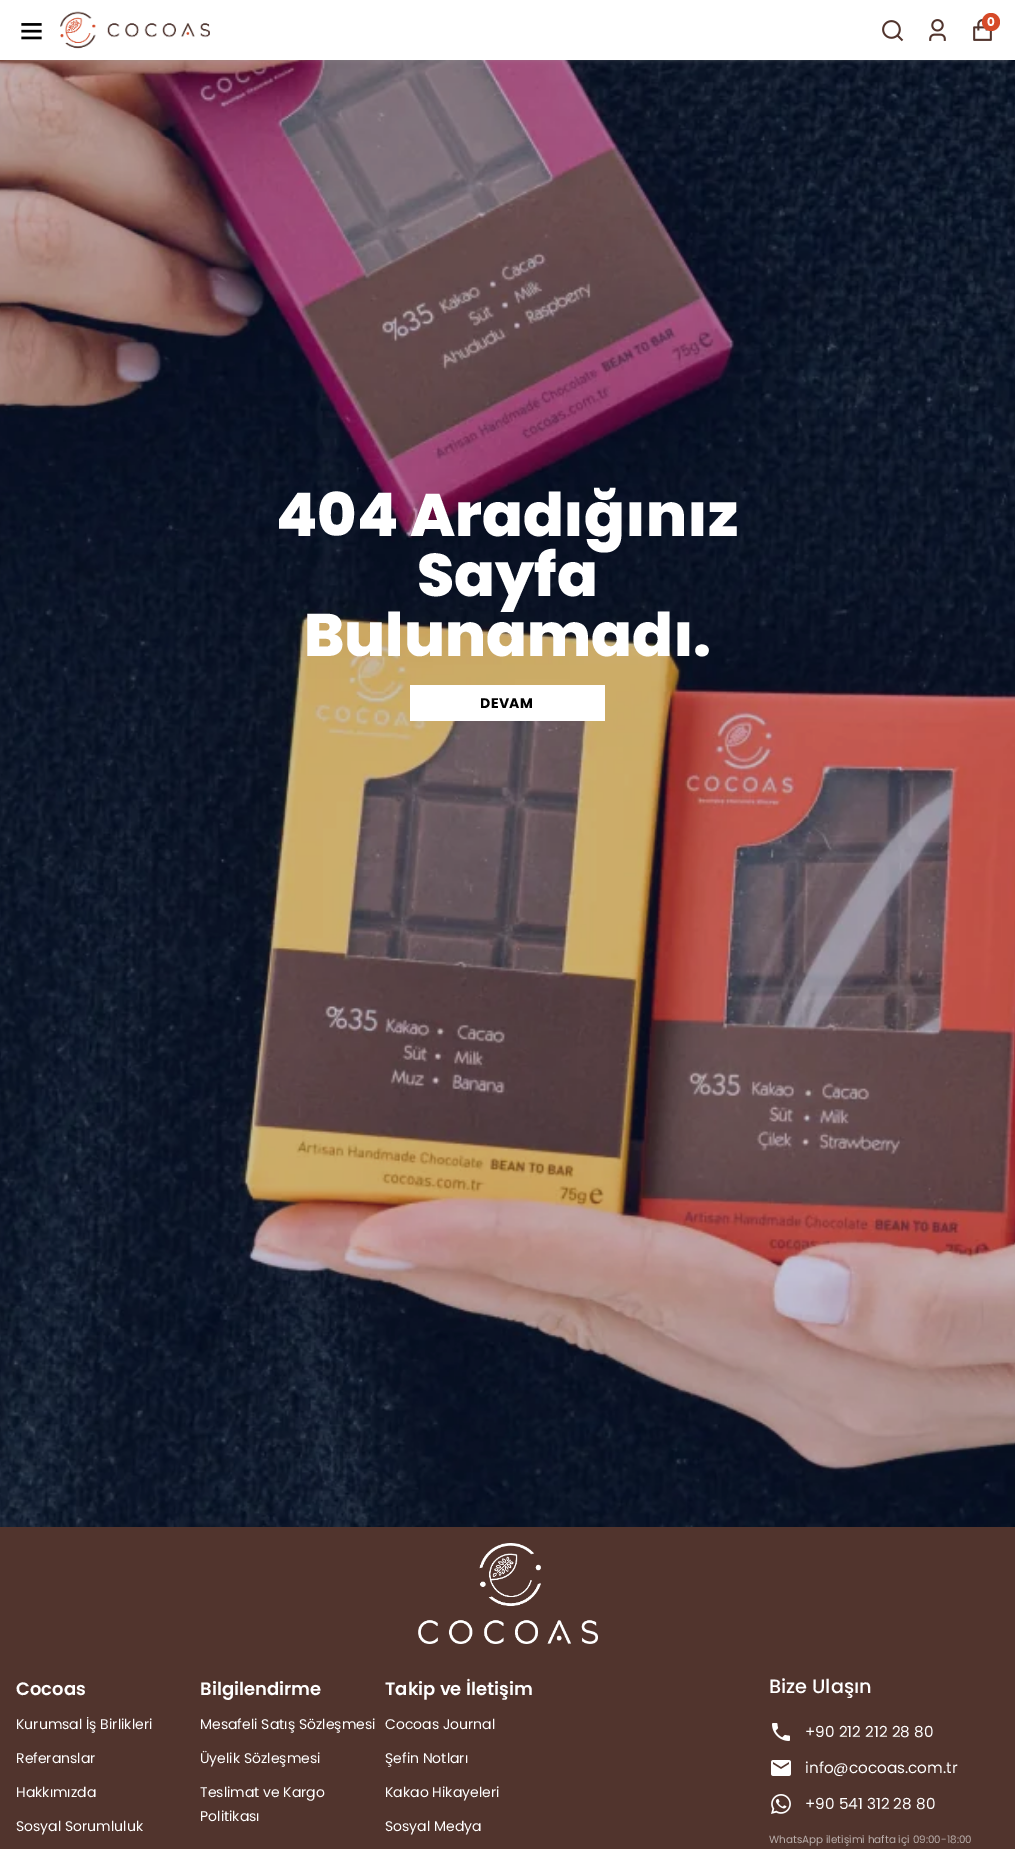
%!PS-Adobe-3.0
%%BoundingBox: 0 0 1015 1849
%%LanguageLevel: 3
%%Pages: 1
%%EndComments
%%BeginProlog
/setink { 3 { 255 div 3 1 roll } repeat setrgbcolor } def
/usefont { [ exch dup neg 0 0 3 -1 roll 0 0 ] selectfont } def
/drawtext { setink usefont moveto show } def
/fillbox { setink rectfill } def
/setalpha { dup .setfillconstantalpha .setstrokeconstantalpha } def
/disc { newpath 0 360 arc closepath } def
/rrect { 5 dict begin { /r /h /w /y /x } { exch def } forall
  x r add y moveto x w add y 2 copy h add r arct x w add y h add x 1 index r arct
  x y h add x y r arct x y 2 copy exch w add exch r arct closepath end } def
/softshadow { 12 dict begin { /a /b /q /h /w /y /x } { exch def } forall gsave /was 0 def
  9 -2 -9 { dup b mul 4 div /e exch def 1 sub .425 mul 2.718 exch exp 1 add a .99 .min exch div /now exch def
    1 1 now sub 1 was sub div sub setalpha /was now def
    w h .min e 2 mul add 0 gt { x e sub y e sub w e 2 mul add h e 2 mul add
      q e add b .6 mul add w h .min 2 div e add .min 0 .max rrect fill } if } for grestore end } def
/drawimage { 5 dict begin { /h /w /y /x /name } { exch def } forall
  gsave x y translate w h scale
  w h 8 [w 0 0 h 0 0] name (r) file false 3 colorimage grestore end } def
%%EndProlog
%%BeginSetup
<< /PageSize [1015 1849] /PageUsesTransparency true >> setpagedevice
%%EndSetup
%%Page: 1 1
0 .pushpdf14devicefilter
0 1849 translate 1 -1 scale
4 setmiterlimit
0 0 1015 1849 81 52 45 fillbox
(assets/img6.rgb) 0 60 1015 1467 drawimage
152 152 152 setink
7 12 1001 46 0 2.5 1 softshadow
0 0 1015 60 255 255 255 fillbox
(assets/img1.rgb) 60 11 150 38 drawimage
(assets/img2.rgb) 882 20 22 22 drawimage
(assets/img3.rgb) 929 19 17 22 drawimage
(assets/img4.rgb) 973 19 19 22 drawimage
214 74 40 setink
991 22 9 disc fill
(0) 987 26 /Poppins-Bold 12 255 255 255 drawtext
(assets/img5.rgb) 21 23 21 17 drawimage
(404 Aradığınız) 276 536 /Poppins-ExtraBold 60 255 255 255 drawtext
(Sayfa) 417 596 /Poppins-ExtraBold 60 255 255 255 drawtext
(Bulunamadı.) 304 656 /Poppins-ExtraBold 60 255 255 255 drawtext
410 685 195 36 255 255 255 fillbox
/Poppins-Bold 14 usefont
0 0 0 setink
480 708 moveto 0.5 0 (DEVAM) ashow
(assets/img7.rgb) 418 1543 180 101 drawimage
(Cocoas) 16 1695 /Poppins-SemiBold 18 255 255 255 drawtext
(Kurumsal İş Birlikleri) 16 1729 /Poppins-Regular 14 255 255 255 drawtext
(Referanslar) 16 1763 /Poppins-Regular 14 255 255 255 drawtext
(Hakkımızda) 16 1797 /Poppins-Regular 14 255 255 255 drawtext
(Sosyal Sorumluluk) 16 1831 /Poppins-Regular 14 255 255 255 drawtext
(Bilgilendirme) 200 1695 /Poppins-SemiBold 18 255 255 255 drawtext
(Mesafeli Satış Sözleşmesi) 200 1729 /Poppins-Regular 14 255 255 255 drawtext
(Üyelik Sözleşmesi) 200 1763 /Poppins-Regular 14 255 255 255 drawtext
(Teslimat ve Kargo) 200 1797 /Poppins-Regular 14 255 255 255 drawtext
(Politikası) 200 1821 /Poppins-Regular 14 255 255 255 drawtext
(Takip ve İletişim) 385 1695 /Poppins-SemiBold 18 255 255 255 drawtext
(Cocoas Journal) 385 1729 /Poppins-Regular 14 255 255 255 drawtext
(Şefin Notları) 385 1763 /Poppins-Regular 14 255 255 255 drawtext
(Kakao Hikayeleri) 385 1797 /Poppins-Regular 14 255 255 255 drawtext
(Sosyal Medya) 385 1831 /Poppins-Regular 14 255 255 255 drawtext
(Bize Ulaşın) 769 1693 /Poppins-Medium 19.25 255 255 255 drawtext
(assets/img8.rgb) 772 1723 18 18 drawimage
(+90 212 212 28 80) 805 1737 /Poppins-Regular 15.25 255 255 255 drawtext
(assets/img9.rgb) 771 1760 20 16 drawimage
(info@cocoas.com.tr) 805 1773 /Poppins-Regular 15.25 255 255 255 drawtext
(assets/img10.rgb) 771 1794 20 20 drawimage
(+90 541 312 28 80) 805 1809 /Poppins-Regular 15.25 255 255 255 drawtext
(WhatsApp iletişimi hafta içi 09:00-18:00) 769 1843 /Poppins-Regular 10.4 185 174 171 drawtext
.poppdf14devicefilter showpage
%%EOF
